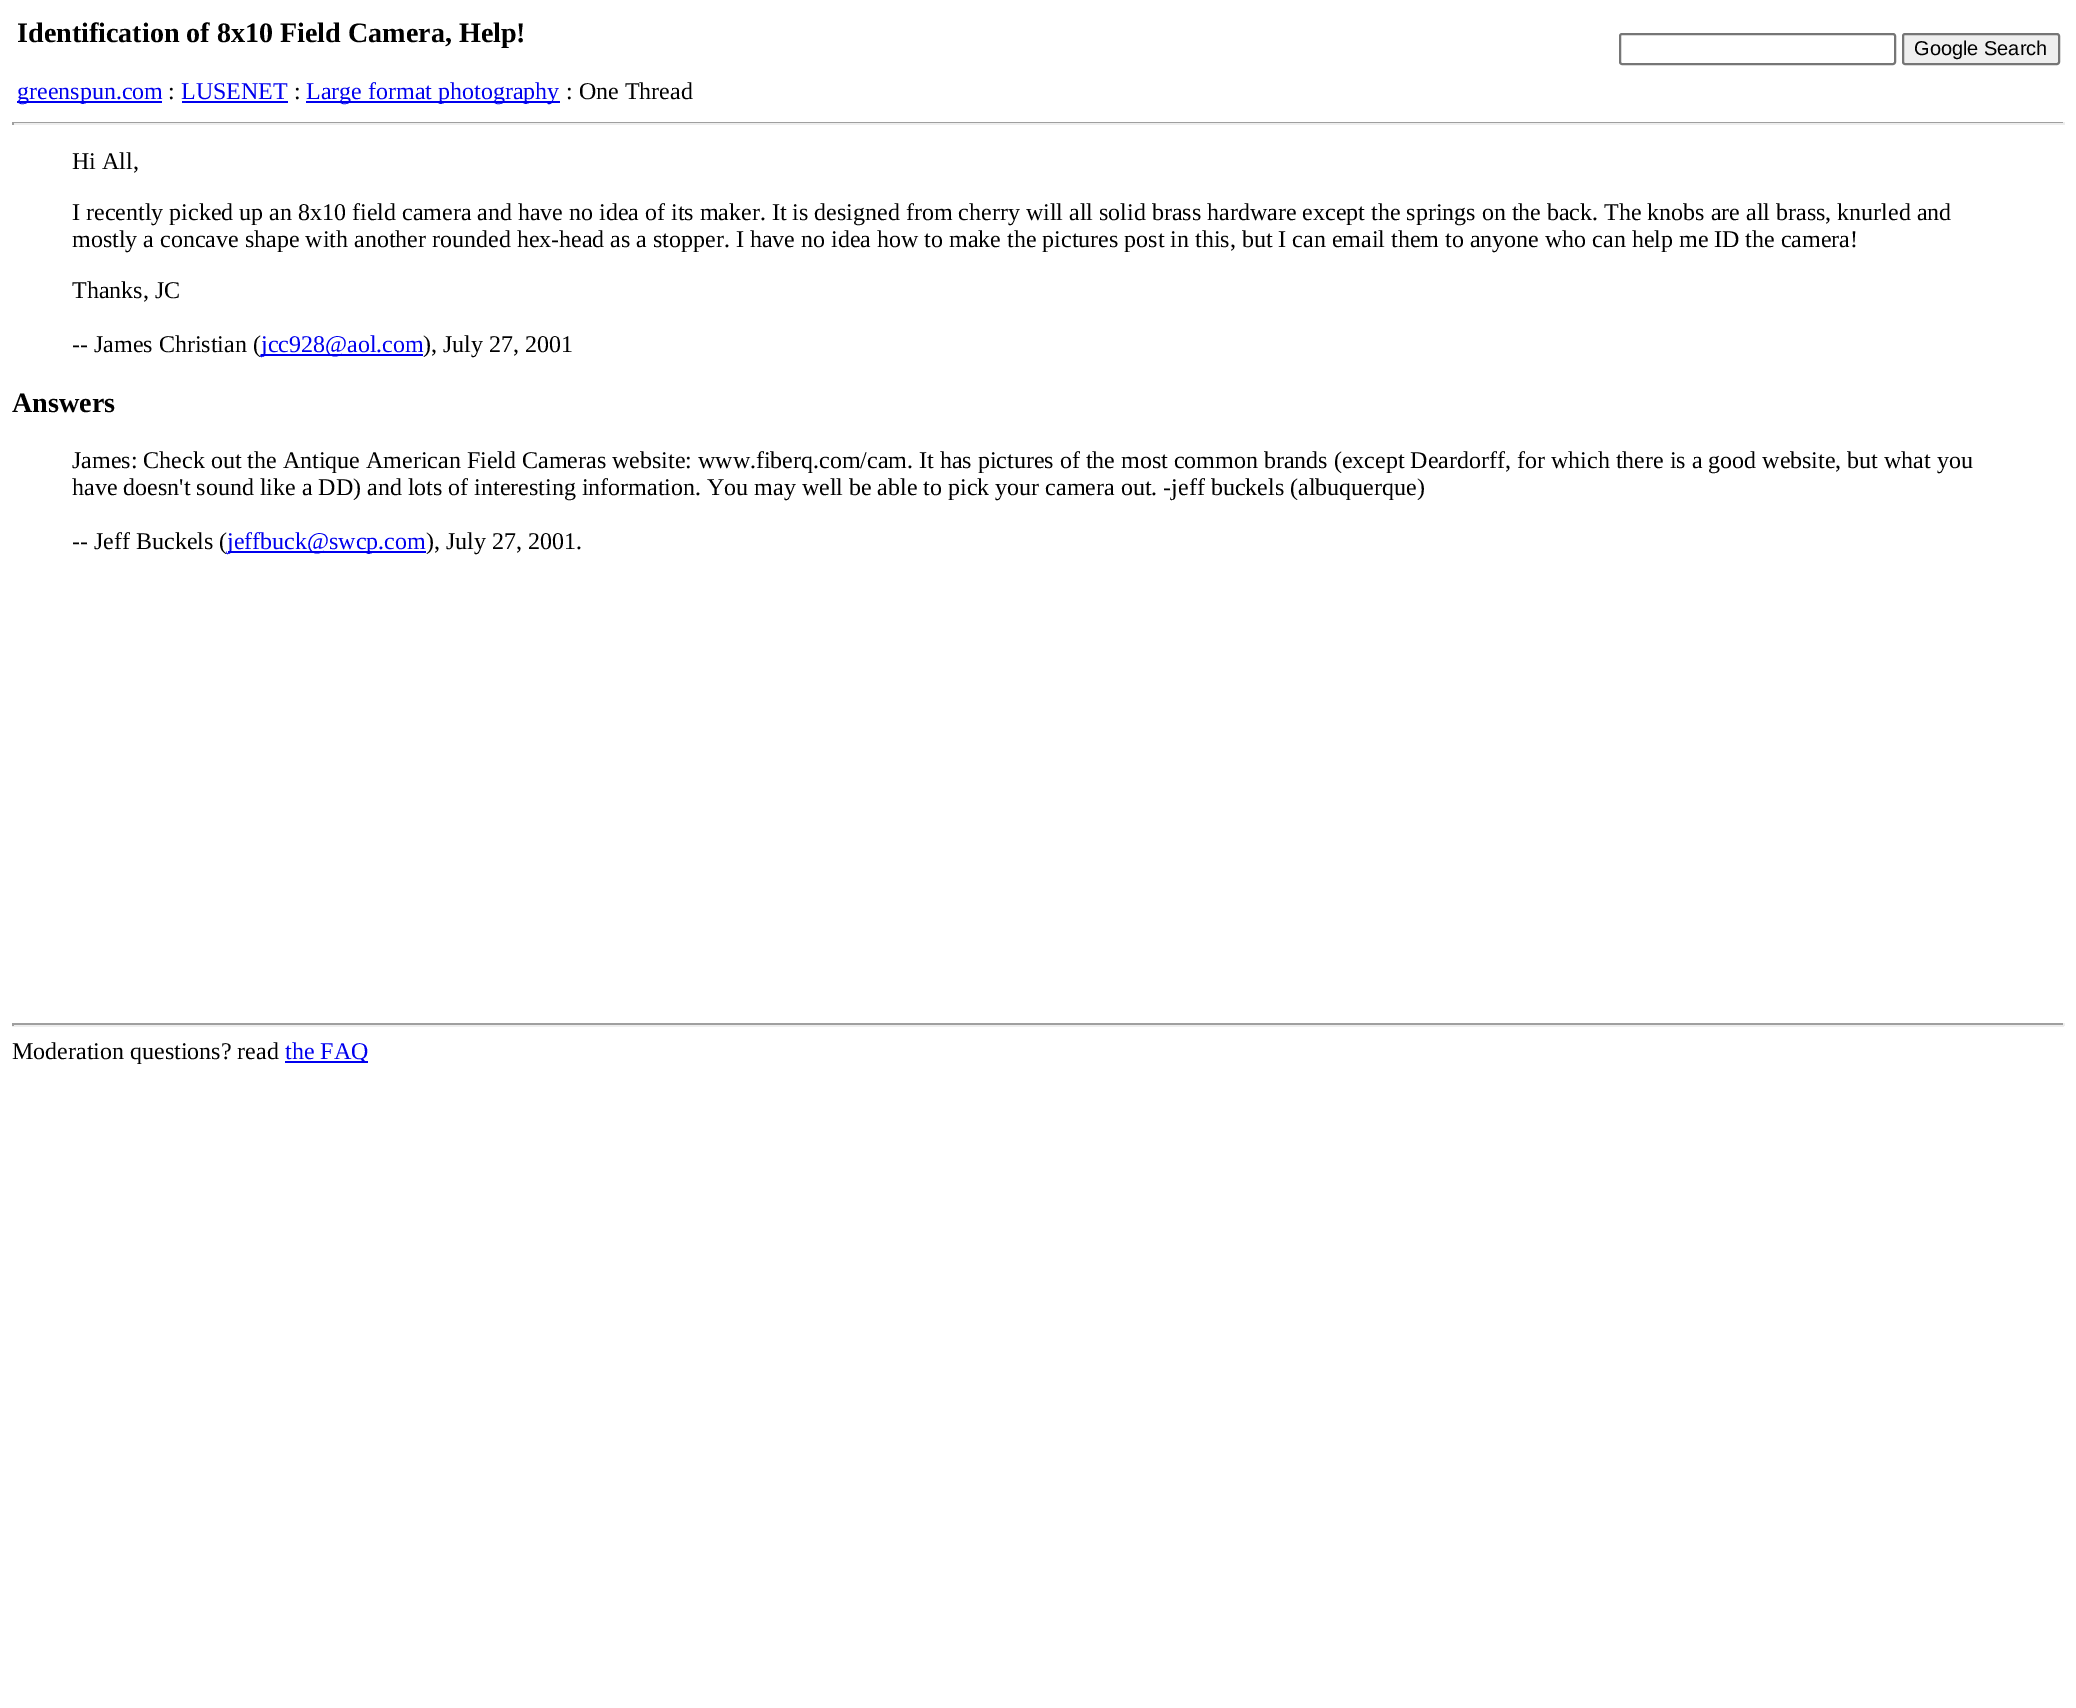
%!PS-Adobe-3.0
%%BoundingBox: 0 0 2076 1708
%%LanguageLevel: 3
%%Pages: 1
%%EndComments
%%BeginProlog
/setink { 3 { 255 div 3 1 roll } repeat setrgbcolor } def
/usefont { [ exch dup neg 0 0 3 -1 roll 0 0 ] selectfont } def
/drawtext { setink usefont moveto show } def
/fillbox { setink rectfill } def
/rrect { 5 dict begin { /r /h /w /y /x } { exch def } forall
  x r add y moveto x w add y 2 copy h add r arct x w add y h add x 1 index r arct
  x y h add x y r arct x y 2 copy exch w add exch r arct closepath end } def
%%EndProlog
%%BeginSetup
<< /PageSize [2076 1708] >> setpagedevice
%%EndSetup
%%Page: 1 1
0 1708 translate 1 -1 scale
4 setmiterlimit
0 0 2076 1708 255 255 255 fillbox
(Identification of 8x10 Field Camera, Help!) 17 42 /LiberationSerif-Bold 28.1 0 0 0 drawtext
17 101 145 2 0 0 238 fillbox
(greenspun.com) 17 99 /LiberationSerif-Regular 24 0 0 238 drawtext
(:) 168 99 /LiberationSerif-Regular 24 0 0 0 drawtext
(LUSENET) 181 99 /LiberationSerif-Regular 24 0 0 238 drawtext
182 101 106 2 0 0 238 fillbox
(:) 294 99 /LiberationSerif-Regular 24 0 0 0 drawtext
306 101 254 2 0 0 238 fillbox
(Large format photography) 306 99 /LiberationSerif-Regular 24 0 0 238 drawtext
(: One Thread) 566 99 /LiberationSerif-Regular 24 0 0 0 drawtext
118 118 118 setink
2 setlinewidth
1620 34 275 30 2 rrect stroke
239 239 239 setink
1903 34 156 30 2 rrect gsave fill grestore
118 118 118 setink
stroke
(Google Search) 1914 55 /LiberationSans-Regular 20 0 0 0 drawtext
12 122 2052 1 159 159 159 fillbox
2063 122 2 3 238 238 238 fillbox
12 123 2052 2 238 238 238 fillbox
12 122 2 3 159 159 159 fillbox
(Hi All,) 72 169 /LiberationSerif-Regular 24 0 0 0 drawtext
(I recently picked up an 8x10 field camera and have no idea of its maker. It is designed from cherry will all solid brass hardware except the springs on the back. The knobs are all brass, knurled and) 72 220 /LiberationSerif-Regular 24 0 0 0 drawtext
(mostly a concave shape with another rounded hex-head as a stopper. I have no idea how to make the pictures post in this, but I can email them to anyone who can help me ID the camera!) 72 247 /LiberationSerif-Regular 24 0 0 0 drawtext
(Thanks, JC) 72 298 /LiberationSerif-Regular 24 0 0 0 drawtext
(-- James Christian \() 72 352 /LiberationSerif-Regular 24 0 0 0 drawtext
261 354 162 2 0 0 238 fillbox
(jcc928@aol.com) 261 352 /LiberationSerif-Regular 24 0 0 238 drawtext
(\), July 27, 2001) 423 352 /LiberationSerif-Regular 24 0 0 0 drawtext
(Answers) 12 412 /LiberationSerif-Bold 28.1 0 0 0 drawtext
(James: Check out the Antique American Field Cameras website: www.fiberq.com/cam. It has pictures of the most common brands \(except Deardorff, for which there is a good website, but what you) 72 468 /LiberationSerif-Regular 24 0 0 0 drawtext
(have doesn't sound like a DD\) and lots of interesting information. You may well be able to pick your camera out. -jeff buckels \(albuquerque\)) 72 495 /LiberationSerif-Regular 24 0 0 0 drawtext
(-- Jeff Buckels \() 72 549 /LiberationSerif-Regular 24 0 0 0 drawtext
228 551 198 2 0 0 238 fillbox
(jeffbuck@swcp.com) 227 549 /LiberationSerif-Regular 24 0 0 238 drawtext
(\), July 27, 2001.) 426 549 /LiberationSerif-Regular 24 0 0 0 drawtext
12 1023 2052 2 159 159 159 fillbox
2063 1023 2 3 238 238 238 fillbox
12 1025 2052 2 238 238 238 fillbox
12 1023 2 3 159 159 159 fillbox
(Moderation questions? read) 12 1059 /LiberationSerif-Regular 24 0 0 0 drawtext
285 1061 83 2 0 0 238 fillbox
(the FAQ) 285 1059 /LiberationSerif-Regular 24 0 0 238 drawtext
showpage
%%EOF
